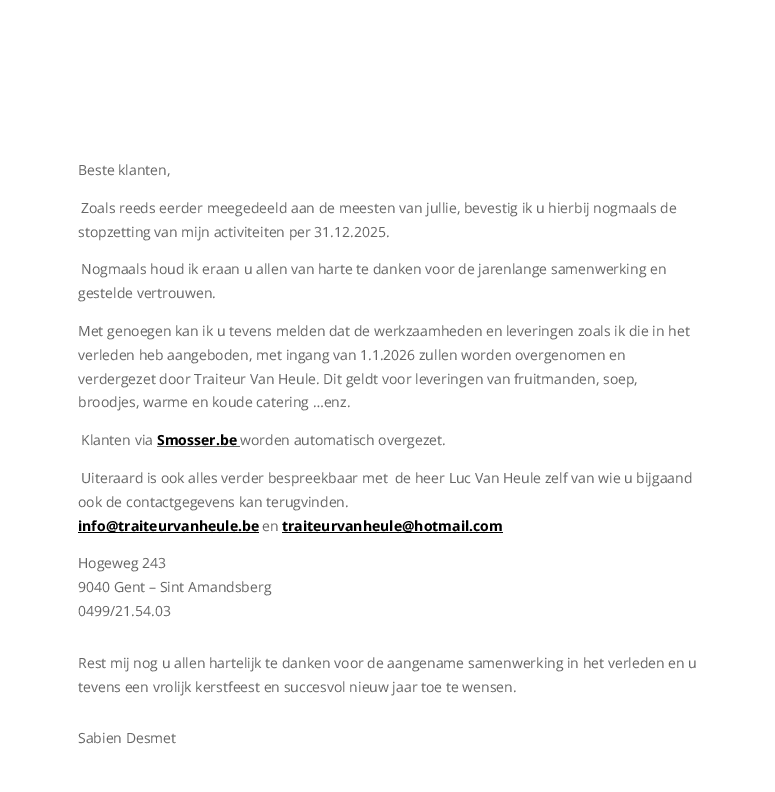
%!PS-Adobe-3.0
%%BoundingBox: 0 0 775 792
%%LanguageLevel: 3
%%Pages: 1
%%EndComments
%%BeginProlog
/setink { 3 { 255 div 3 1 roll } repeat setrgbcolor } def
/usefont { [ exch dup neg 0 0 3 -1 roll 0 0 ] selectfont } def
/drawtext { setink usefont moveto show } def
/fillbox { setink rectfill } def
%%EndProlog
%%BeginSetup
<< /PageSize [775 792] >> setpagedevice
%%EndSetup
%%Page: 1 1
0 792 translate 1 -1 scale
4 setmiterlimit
0 0 775 792 255 255 255 fillbox
(Beste klanten,) 78 175 /OpenSans-Regular 14 102 102 102 drawtext
(Zoals reeds eerder meegedeeld aan de meesten van jullie, bevestig ik u hierbij nogmaals de) 81 213 /OpenSans-Regular 14 102 102 102 drawtext
(stopzetting van mijn activiteiten per 31.12.2025.) 78 237 /OpenSans-Regular 14 102 102 102 drawtext
(Nogmaals houd ik eraan u allen van harte te danken voor de jarenlange samenwerking en) 81 274 /OpenSans-Regular 14 102 102 102 drawtext
(gestelde vertrouwen.) 78 298 /OpenSans-Regular 14 102 102 102 drawtext
(Met genoegen kan ik u tevens melden dat de werkzaamheden en leveringen zoals ik die in het) 78 336 /OpenSans-Regular 14 102 102 102 drawtext
(verleden heb aangeboden, met ingang van 1.1.2026 zullen worden overgenomen en) 78 360 /OpenSans-Regular 14 102 102 102 drawtext
(verdergezet door Traiteur Van Heule. Dit geldt voor leveringen van fruitmanden, soep,) 78 384 /OpenSans-Regular 14 102 102 102 drawtext
(broodjes, warme en koude catering …enz.) 78 407 /OpenSans-Regular 14 102 102 102 drawtext
(Klanten via) 81 445 /OpenSans-Regular 14 102 102 102 drawtext
(Smosser.be) 157 445 /OpenSans-Bold 14 0 0 0 drawtext
157 446 83 1 102 102 102 fillbox
(worden automatisch overgezet.) 240 445 /OpenSans-Regular 14 102 102 102 drawtext
(Uiteraard is ook alles verder bespreekbaar met  de heer Luc Van Heule zelf van wie u bijgaand) 81 483 /OpenSans-Regular 14 102 102 102 drawtext
(ook de contactgegevens kan terugvinden.) 78 507 /OpenSans-Regular 14 102 102 102 drawtext
78 532 181 1 0 0 0 fillbox
(info@traiteurvanheule.be) 78 531 /OpenSans-Bold 14 0 0 0 drawtext
(en) 262 531 /OpenSans-Regular 14 102 102 102 drawtext
282 532 221 1 0 0 0 fillbox
(traiteurvanheule@hotmail.com) 282 531 /OpenSans-Bold 14 0 0 0 drawtext
(Hogeweg 243) 78 568 /OpenSans-Regular 14 102 102 102 drawtext
(9040 Gent – Sint Amandsberg) 78 592 /OpenSans-Regular 14 102 102 102 drawtext
(0499/21.54.03) 78 616 /OpenSans-Regular 14 102 102 102 drawtext
(Rest mij nog u allen hartelijk te danken voor de aangename samenwerking in het verleden en u) 78 668 /OpenSans-Regular 14 102 102 102 drawtext
(tevens een vrolijk kerstfeest en succesvol nieuw jaar toe te wensen.) 78 692 /OpenSans-Regular 14 102 102 102 drawtext
(Sabien Desmet) 78 743 /OpenSans-Regular 14 102 102 102 drawtext
showpage
%%EOF
